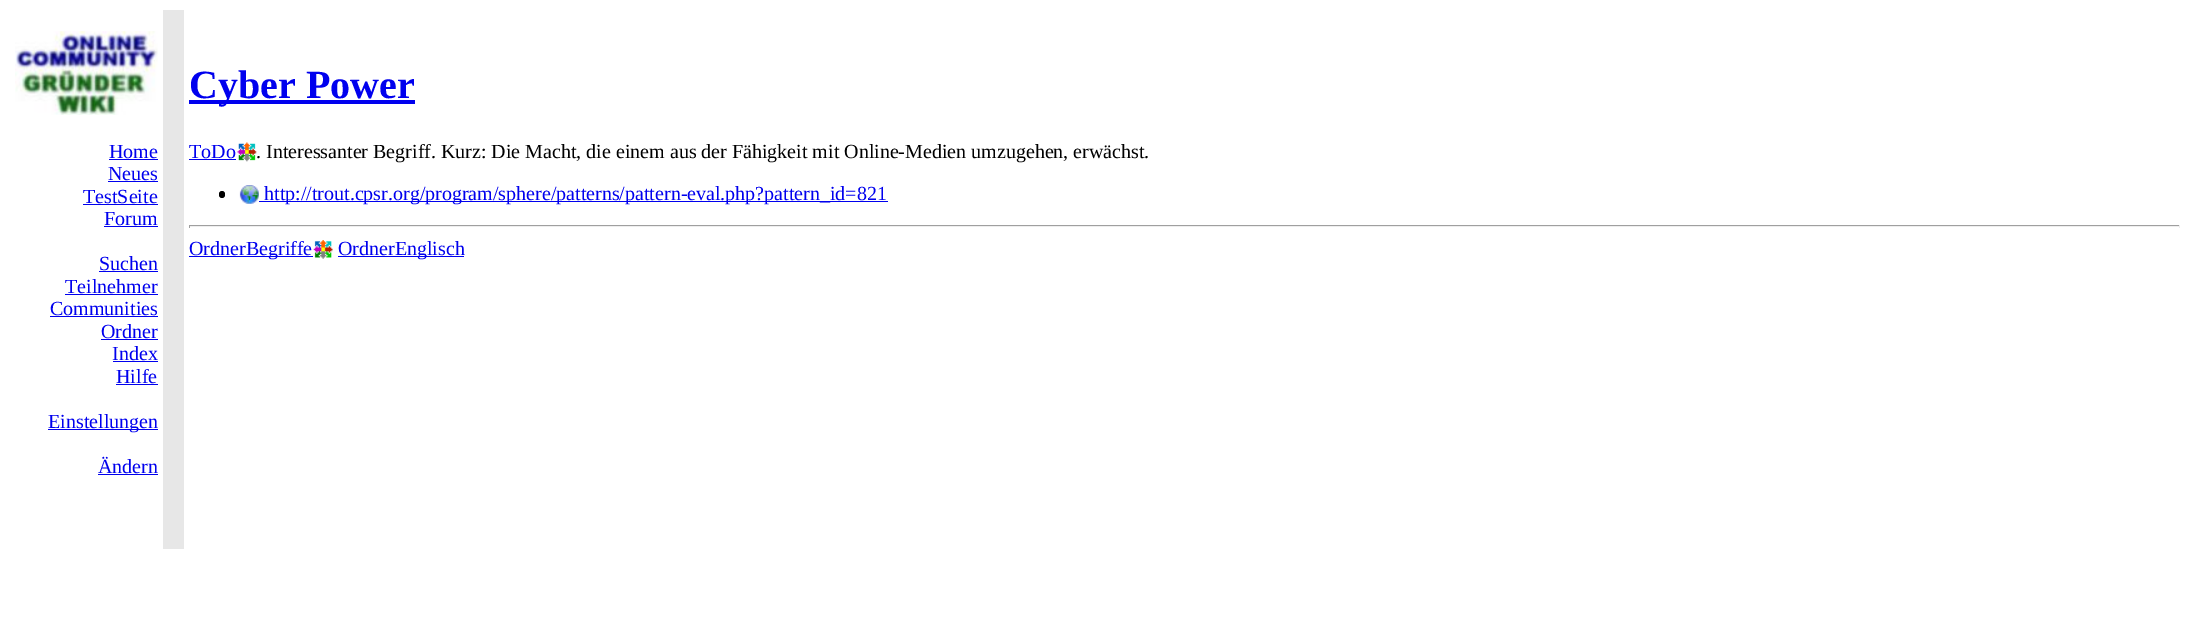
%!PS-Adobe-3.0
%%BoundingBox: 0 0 2195 640
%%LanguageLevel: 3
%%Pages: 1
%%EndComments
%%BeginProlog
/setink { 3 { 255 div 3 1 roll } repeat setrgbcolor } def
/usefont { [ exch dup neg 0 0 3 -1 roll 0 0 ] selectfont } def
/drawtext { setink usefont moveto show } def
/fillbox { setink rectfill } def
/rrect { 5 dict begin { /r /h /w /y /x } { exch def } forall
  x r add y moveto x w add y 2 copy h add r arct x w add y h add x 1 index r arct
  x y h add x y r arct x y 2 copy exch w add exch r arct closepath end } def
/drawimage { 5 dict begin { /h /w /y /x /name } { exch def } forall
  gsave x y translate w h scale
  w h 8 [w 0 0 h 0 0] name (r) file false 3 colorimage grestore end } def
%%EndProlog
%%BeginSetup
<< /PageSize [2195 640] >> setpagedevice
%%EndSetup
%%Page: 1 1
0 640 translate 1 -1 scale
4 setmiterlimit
0 0 2195 640 255 255 255 fillbox
(assets/img1.rgb) 15 31 143 84 drawimage
163 10 21 539 231 231 231 fillbox
189 100 226 4 0 0 238 fillbox
(Cyber Power) 189 98 /LiberationSerif-Bold 40 0 0 238 drawtext
(Home) 109 158 /LiberationSerif-Regular 20 0 0 238 drawtext
109 159 49 1 0 0 238 fillbox
(Neues) 108 180 /LiberationSerif-Regular 20 0 0 238 drawtext
108 181 50 1 0 0 238 fillbox
(TestSeite) 83 203 /LiberationSerif-Regular 20 0 0 238 drawtext
83 204 75 1 0 0 238 fillbox
(Forum) 104 225 /LiberationSerif-Regular 20 0 0 238 drawtext
104 226 54 1 0 0 238 fillbox
(Suchen) 99 270 /LiberationSerif-Regular 20 0 0 238 drawtext
99 271 59 1 0 0 238 fillbox
(Teilnehmer) 65 293 /LiberationSerif-Regular 20 0 0 238 drawtext
65 294 93 1 0 0 238 fillbox
(Communities) 50 315 /LiberationSerif-Regular 20 0 0 238 drawtext
50 316 108 1 0 0 238 fillbox
(Ordner) 101 338 /LiberationSerif-Regular 20 0 0 238 drawtext
101 339 57 1 0 0 238 fillbox
(Index) 112 360 /LiberationSerif-Regular 20 0 0 238 drawtext
113 361 45 1 0 0 238 fillbox
(Hilfe) 116 383 /LiberationSerif-Regular 20 0 0 238 drawtext
116 384 42 1 0 0 238 fillbox
48 429 110 1 0 0 238 fillbox
(Einstellungen) 48 428 /LiberationSerif-Regular 20 0 0 238 drawtext
(Ändern) 98 473 /LiberationSerif-Regular 20 0 0 238 drawtext
98 474 60 1 0 0 238 fillbox
(ToDo) 189 158 /LiberationSerif-Regular 20 0 0 238 drawtext
189 159 47 1 0 0 238 fillbox
(assets/img2.rgb) 237 142 20 20 drawimage
(. Interessanter Begriff. Kurz: Die Macht, die einem aus der Fähigkeit mit Online-Medien umzugehen, erwächst.) 256 158 /LiberationSerif-Regular 20 0 0 0 drawtext
219 191 6 7 3 rrect fill
(assets/img3.rgb) 239 185 20 19 drawimage
259 201 629 1 0 0 238 fillbox
(http://trout.cpsr.org/program/sphere/patterns/pattern-eval.php?pattern_id=821) 264 200 /LiberationSerif-Regular 20 0 0 238 drawtext
189 225 1991 1 159 159 159 fillbox
2179 225 1 3 238 238 238 fillbox
189 226 1991 1 238 238 238 fillbox
189 225 1 3 159 159 159 fillbox
189 256 124 1 0 0 238 fillbox
(OrdnerBegriffe) 189 255 /LiberationSerif-Regular 20 0 0 238 drawtext
(assets/img4.rgb) 313 240 20 19 drawimage
338 256 126 1 0 0 238 fillbox
(OrdnerEnglisch) 338 255 /LiberationSerif-Regular 20 0 0 238 drawtext
showpage
%%EOF
